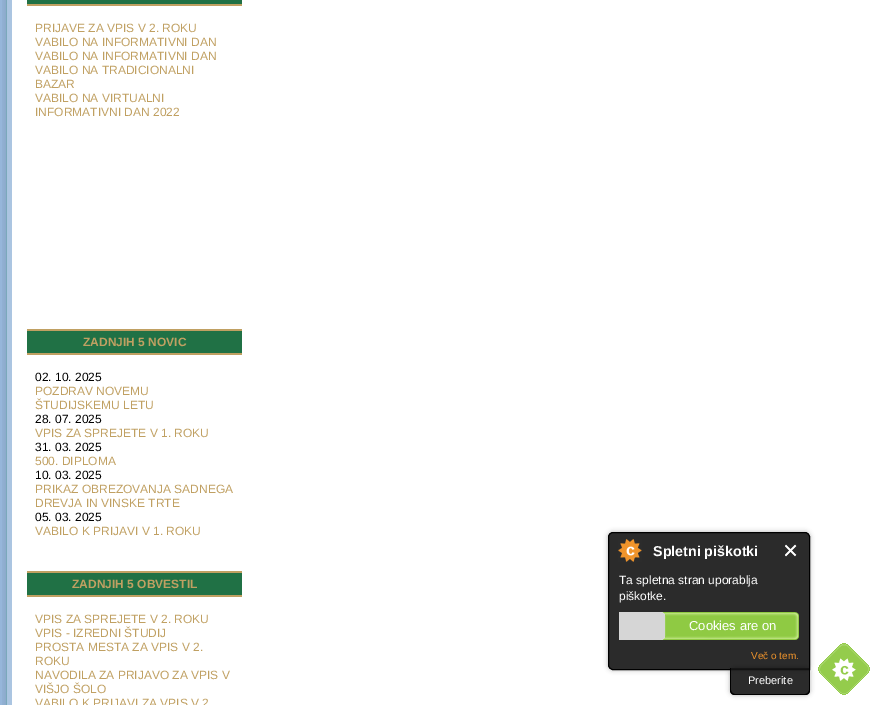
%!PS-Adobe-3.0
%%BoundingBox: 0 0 880 705
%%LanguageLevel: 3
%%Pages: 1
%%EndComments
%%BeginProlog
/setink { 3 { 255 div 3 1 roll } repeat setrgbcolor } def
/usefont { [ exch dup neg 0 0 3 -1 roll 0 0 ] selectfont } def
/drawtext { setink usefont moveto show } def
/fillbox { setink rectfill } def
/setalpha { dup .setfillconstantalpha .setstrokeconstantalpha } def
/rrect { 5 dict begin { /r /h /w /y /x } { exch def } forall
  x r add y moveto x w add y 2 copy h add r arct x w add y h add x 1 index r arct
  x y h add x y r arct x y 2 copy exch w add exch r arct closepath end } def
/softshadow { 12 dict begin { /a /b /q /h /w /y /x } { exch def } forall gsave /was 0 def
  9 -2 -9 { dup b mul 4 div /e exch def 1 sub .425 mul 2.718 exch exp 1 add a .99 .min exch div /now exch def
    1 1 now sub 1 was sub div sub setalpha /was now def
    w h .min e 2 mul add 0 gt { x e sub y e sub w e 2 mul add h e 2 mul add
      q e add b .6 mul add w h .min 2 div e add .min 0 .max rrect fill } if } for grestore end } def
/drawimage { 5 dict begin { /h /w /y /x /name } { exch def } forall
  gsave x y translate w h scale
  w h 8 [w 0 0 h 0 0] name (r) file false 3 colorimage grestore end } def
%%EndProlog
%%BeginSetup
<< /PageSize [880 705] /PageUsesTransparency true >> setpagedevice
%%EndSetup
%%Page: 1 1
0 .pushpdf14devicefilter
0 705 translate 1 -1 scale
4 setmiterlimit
0 0 880 705 150 182 218 fillbox
(assets/img1.rgb) 2 0 10 705 drawimage
12 0 868 705 255 255 255 fillbox
(assets/img2.rgb) 27 0 212 6 drawimage
(assets/img3.rgb) 239 0 3 6 drawimage
(PRIJAVE ZA VPIS V 2. ROKU) 35 32 /LiberationSans-Regular 12 192 160 98 drawtext
(VABILO NA INFORMATIVNI DAN) 35 46 /LiberationSans-Regular 12 192 160 98 drawtext
(VABILO NA INFORMATIVNI DAN) 35 60 /LiberationSans-Regular 12 192 160 98 drawtext
(VABILO NA TRADICIONALNI) 35 74 /LiberationSans-Regular 12 192 160 98 drawtext
(BAZAR) 35 88 /LiberationSans-Regular 12 192 160 98 drawtext
(VABILO NA VIRTUALNI) 35 102 /LiberationSans-Regular 12 192 160 98 drawtext
(INFORMATIVNI DAN 2022) 35 116 /LiberationSans-Regular 12 192 160 98 drawtext
(assets/img4.rgb) 27 329 212 26 drawimage
(assets/img5.rgb) 239 329 3 26 drawimage
(ZADNJIH 5 NOVIC) 83 346 /LiberationSans-Bold 12 192 160 98 drawtext
(02. 10. 2025) 35 381 /LiberationSans-Regular 12 0 0 0 drawtext
(POZDRAV NOVEMU) 35 395 /LiberationSans-Regular 12 192 160 98 drawtext
(ŠTUDIJSKEMU LETU) 35 409 /LiberationSans-Regular 12 192 160 98 drawtext
(28. 07. 2025) 35 423 /LiberationSans-Regular 12 0 0 0 drawtext
(VPIS ZA SPREJETE V 1. ROKU) 35 437 /LiberationSans-Regular 12 192 160 98 drawtext
(31. 03. 2025) 35 451 /LiberationSans-Regular 12 0 0 0 drawtext
(500. DIPLOMA) 35 465 /LiberationSans-Regular 12 192 160 98 drawtext
(10. 03. 2025) 35 479 /LiberationSans-Regular 12 0 0 0 drawtext
(PRIKAZ OBREZOVANJA SADNEGA) 35 493 /LiberationSans-Regular 12 192 160 98 drawtext
(DREVJA IN VINSKE TRTE) 35 507 /LiberationSans-Regular 12 192 160 98 drawtext
(05. 03. 2025) 35 521 /LiberationSans-Regular 12 0 0 0 drawtext
(VABILO K PRIJAVI V 1. ROKU) 35 535 /LiberationSans-Regular 12 192 160 98 drawtext
(assets/img4.rgb) 27 571 212 26 drawimage
(assets/img5.rgb) 239 571 3 26 drawimage
(ZADNJIH 5 OBVESTIL) 72 588 /LiberationSans-Bold 12 192 160 98 drawtext
(VPIS ZA SPREJETE V 2. ROKU) 35 623 /LiberationSans-Regular 12 192 160 98 drawtext
(VPIS - IZREDNI ŠTUDIJ) 35 637 /LiberationSans-Regular 12 192 160 98 drawtext
(PROSTA MESTA ZA VPIS V 2.) 35 651 /LiberationSans-Regular 12 192 160 98 drawtext
(ROKU) 35 665 /LiberationSans-Regular 12 192 160 98 drawtext
(NAVODILA ZA PRIJAVO ZA VPIS V) 35 679 /LiberationSans-Regular 12 192 160 98 drawtext
(VIŠJO ŠOLO) 35 693 /LiberationSans-Regular 12 192 160 98 drawtext
(VABILO K PRIJAVI ZA VPIS V 2) 35 707 /LiberationSans-Regular 12 192 160 98 drawtext
(assets/img9.rgb) 818 643 52 52 drawimage
gsave
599 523 moveto 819 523 lineto 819 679 lineto 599 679 lineto closepath 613 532 moveto 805 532 lineto 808 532 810 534 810 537 curveto 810 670 lineto 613 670 lineto 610 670 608 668 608 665 curveto 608 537 lineto 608 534 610 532 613 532 curveto closepath eoclip newpath
0 0 0 setink
608 532 202 138 5 2.5 0.3 softshadow
grestore
0.9 setalpha
20 20 20 setink
613 532.5 moveto 805 532.5 lineto 807.5 532.5 809.5 534.5 809.5 537 curveto 809.5 669.5 lineto 613 669.5 lineto 610.5 669.5 608.5 667.5 608.5 665 curveto 608.5 537 lineto 608.5 534.5 610.5 532.5 613 532.5 curveto closepath fill
1 setalpha
0 0 0 setink
613 532.5 moveto 805 532.5 lineto 807.5 532.5 809.5 534.5 809.5 537 curveto 809.5 669.5 lineto 613 669.5 lineto 610.5 669.5 608.5 667.5 608.5 665 curveto 608.5 537 lineto 608.5 534.5 610.5 532.5 613 532.5 curveto closepath stroke
(assets/img6.rgb) 618 539 24 23 drawimage
(Spletni piškotki) 653 556 /LiberationSans-Bold 14.25 255 255 255 drawtext
(assets/img7.rgb) 785 544 12 13 drawimage
(Ta spletna stran uporablja) 619 584 /LiberationSans-Regular 12 255 255 255 drawtext
(piškotke.) 619 600 /LiberationSans-Regular 12 255 255 255 drawtext
(assets/img8.rgb) 619 612 180 28 drawimage
(Cookies are on) 689 630 /LiberationSans-Regular 13 255 255 255 drawtext
gsave
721 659 moveto 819 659 lineto 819 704 lineto 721 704 lineto closepath 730 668 moveto 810 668 lineto 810 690 lineto 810 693 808 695 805 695 curveto 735 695 lineto 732 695 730 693 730 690 curveto closepath eoclip newpath
0 0 0 setink
730 668 80 27 5 2.5 0.3 softshadow
grestore
(Več o tem.) 751 659 /LiberationSans-Regular 10 240 148 43 drawtext
0.9 setalpha
20 20 20 setink
730 668 moveto 810 668 lineto 810 690 lineto 810 693 808 695 805 695 curveto 735 695 lineto 732 695 730 693 730 690 curveto closepath fill
1 setalpha
0 0 0 setink
730 668 moveto 810 668 lineto 810 690 lineto 810 693 808 695 805 695 curveto 735 695 lineto 732 695 730 693 730 690 curveto closepath 731 668 moveto 809 668 lineto 809 690 lineto 809 692 807 694 805 694 curveto 735 694 lineto 733 694 731 692 731 690 curveto closepath eofill
(Preberite) 748 684 /LiberationSans-Regular 11 255 255 255 drawtext
.poppdf14devicefilter showpage
%%EOF
